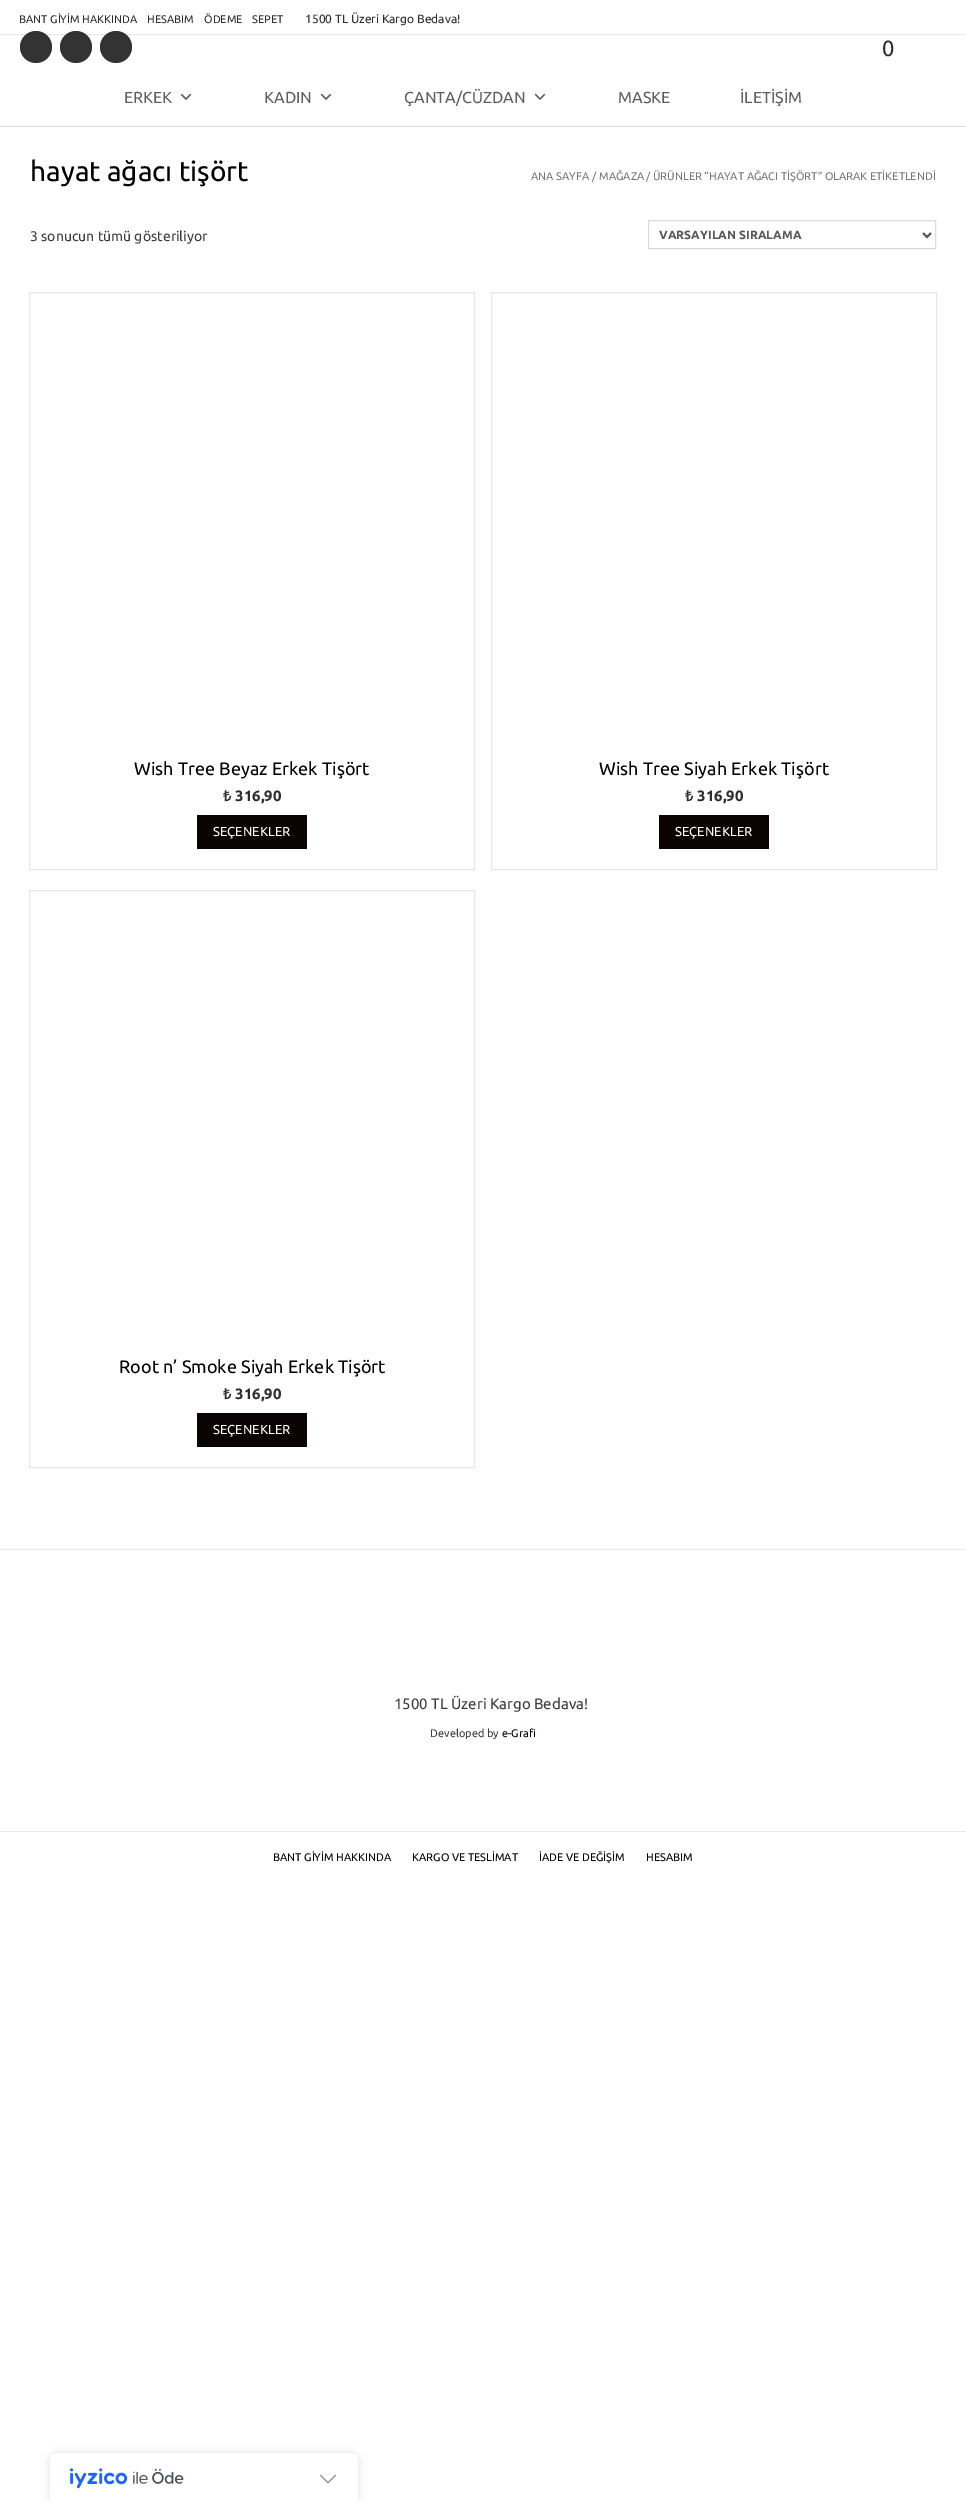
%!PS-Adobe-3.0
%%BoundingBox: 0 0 966 2503
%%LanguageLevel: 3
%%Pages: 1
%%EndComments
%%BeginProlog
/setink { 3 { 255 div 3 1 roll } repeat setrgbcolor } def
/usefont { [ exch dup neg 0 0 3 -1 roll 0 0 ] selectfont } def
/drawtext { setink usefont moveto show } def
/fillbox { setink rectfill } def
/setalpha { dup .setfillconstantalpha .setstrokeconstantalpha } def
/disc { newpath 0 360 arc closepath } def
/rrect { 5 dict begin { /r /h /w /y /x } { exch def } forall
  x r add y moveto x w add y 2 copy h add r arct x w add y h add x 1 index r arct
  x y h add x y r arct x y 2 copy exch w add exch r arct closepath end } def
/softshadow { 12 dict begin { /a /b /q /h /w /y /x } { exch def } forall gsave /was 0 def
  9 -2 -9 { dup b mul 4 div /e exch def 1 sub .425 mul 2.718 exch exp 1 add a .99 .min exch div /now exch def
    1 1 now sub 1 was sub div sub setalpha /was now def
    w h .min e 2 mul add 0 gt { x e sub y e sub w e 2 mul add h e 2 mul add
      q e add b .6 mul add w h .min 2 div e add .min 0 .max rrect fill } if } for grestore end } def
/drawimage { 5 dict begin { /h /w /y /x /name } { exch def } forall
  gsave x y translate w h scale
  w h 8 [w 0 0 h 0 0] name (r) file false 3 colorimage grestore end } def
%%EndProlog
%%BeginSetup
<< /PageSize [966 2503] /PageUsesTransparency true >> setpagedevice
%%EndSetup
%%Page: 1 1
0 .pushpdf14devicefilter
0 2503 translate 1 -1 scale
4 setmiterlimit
0 0 966 2503 255 255 255 fillbox
0 126 966 1 219 219 219 fillbox
0 34 966 1 235 235 235 fillbox
(BANT GİYİM HAKKINDA) 19 23 /Ubuntu-Regular 11 45 45 45 drawtext
(HESABIM) 147 23 /Ubuntu-Regular 11 45 45 45 drawtext
(ÖDEME) 204 23 /Ubuntu-Regular 11 45 45 45 drawtext
(SEPET) 252 23 /Ubuntu-Regular 11 45 45 45 drawtext
(1500 TL Üzeri Kargo Bedava!) 305 23 /Ubuntu-Regular 12 45 45 45 drawtext
0.8 setalpha
0 0 0 setink
36 47 16 disc fill
76 47 16 disc fill
116 47 16 disc fill
1 setalpha
(0) 882 56 /Ubuntu-Regular 22 45 45 45 drawtext
(ERKEK) 124 103 /Ubuntu-Regular 16 95 95 95 drawtext
(assets/img1.rgb) 180 93 12 7 drawimage
(KADIN) 264 103 /Ubuntu-Regular 16 95 95 95 drawtext
(assets/img1.rgb) 320 93 12 7 drawimage
(ÇANTA/CÜZDAN) 404 103 /Ubuntu-Regular 16 95 95 95 drawtext
(assets/img1.rgb) 534 93 12 7 drawimage
(MASKE) 618 103 /Ubuntu-Regular 16 95 95 95 drawtext
(İLETİŞİM) 740 103 /Ubuntu-Regular 16 95 95 95 drawtext
(hayat ağacı tişört) 30 181 /Ubuntu-Regular 28 0 0 0 drawtext
(ANA SAYFA) 531 180 /Ubuntu-Regular 11 118 118 118 drawtext
(/) 592 180 /Ubuntu-Regular 11 118 118 118 drawtext
(MAĞAZA) 599 180 /Ubuntu-Regular 11 118 118 118 drawtext
(/ ÜRÜNLER “HAYAT AĞACI TİŞÖRT” OLARAK ETİKETLENDİ) 646 180 /Ubuntu-Regular 11 118 118 118 drawtext
(3 sonucun tümü gösteriliyor) 30 241 /Ubuntu-Regular 14 60 60 60 drawtext
250 250 250 setink
648 248 moveto 648 249 648 250 649 250 curveto 935 250 lineto 936 250 lineto 936 248 lineto 935 249 lineto 649 249 lineto closepath fill
220 220 220 setink
648.5 220.5 287 28 0.5 rrect stroke
89 89 89 setink
2 setlinewidth
923 233 moveto 927 237 lineto 931 233 lineto stroke
(VARSAYILAN SIRALAMA) 659 239 /Ubuntu-Bold 12 89 89 89 drawtext
230 230 230 setink
1 setlinewidth
29.5 292.5 445 577 rectstroke
(Wish Tree Beyaz Erkek Tişört) 134 775 /Ubuntu-Regular 18 0 0 0 drawtext
(₺) 223 801 /NotoSans-SemiBold 15 45 45 45 drawtext
(316,90) 235 801 /Ubuntu-Bold 15 45 45 45 drawtext
197 815 110 34 10 3 3 fillbox
(SEÇENEKLER) 213 836 /Ubuntu-Regular 13 255 255 255 drawtext
230 230 230 setink
491.5 292.5 445 577 rectstroke
(Wish Tree Siyah Erkek Tişört) 599 775 /Ubuntu-Regular 18 0 0 0 drawtext
(₺) 685 801 /NotoSans-SemiBold 15 45 45 45 drawtext
(316,90) 697 801 /Ubuntu-Bold 15 45 45 45 drawtext
659 815 110 34 10 3 3 fillbox
(SEÇENEKLER) 675 836 /Ubuntu-Regular 13 255 255 255 drawtext
230 230 230 setink
29.5 890.5 445 577 rectstroke
(Root n’ Smoke Siyah Erkek Tişört) 119 1373 /Ubuntu-Regular 18 0 0 0 drawtext
(₺) 223 1399 /NotoSans-SemiBold 15 45 45 45 drawtext
(316,90) 235 1399 /Ubuntu-Bold 15 45 45 45 drawtext
197 1413 110 34 10 3 3 fillbox
(SEÇENEKLER) 213 1434 /Ubuntu-Regular 13 255 255 255 drawtext
0 1549 966 1 235 235 235 fillbox
(1500 TL Üzeri Kargo Bedava!) 394 1709 /Ubuntu-Regular 15 60 60 60 drawtext
(Developed by) 430 1737 /Ubuntu-Regular 11 60 60 60 drawtext
(e-Grafi) 502 1737 /Ubuntu-Regular 11 10 3 3 drawtext
0 1831 966 1 235 235 235 fillbox
(BANT GİYİM HAKKINDA) 273 1861 /Ubuntu-Regular 11 0 0 0 drawtext
(KARGO VE TESLİMAT) 412 1861 /Ubuntu-Regular 11 0 0 0 drawtext
(İADE VE DEĞİŞİM) 539 1861 /Ubuntu-Regular 11 0 0 0 drawtext
(HESABIM) 646 1861 /Ubuntu-Regular 11 0 0 0 drawtext
50 2453 308 50 8 4 0.12 softshadow
255 255 255 setink
58 2453 moveto 350 2453 lineto 354.5 2453 358 2456.5 358 2461 curveto 358 2503 lineto 50 2503 lineto 50 2461 lineto 50 2456.5 53.5 2453 58 2453 curveto closepath fill
(assets/img2.rgb) 70 2468 114 21 drawimage
(assets/img3.rgb) 320 2474 16 10 drawimage
.poppdf14devicefilter showpage
%%EOF
